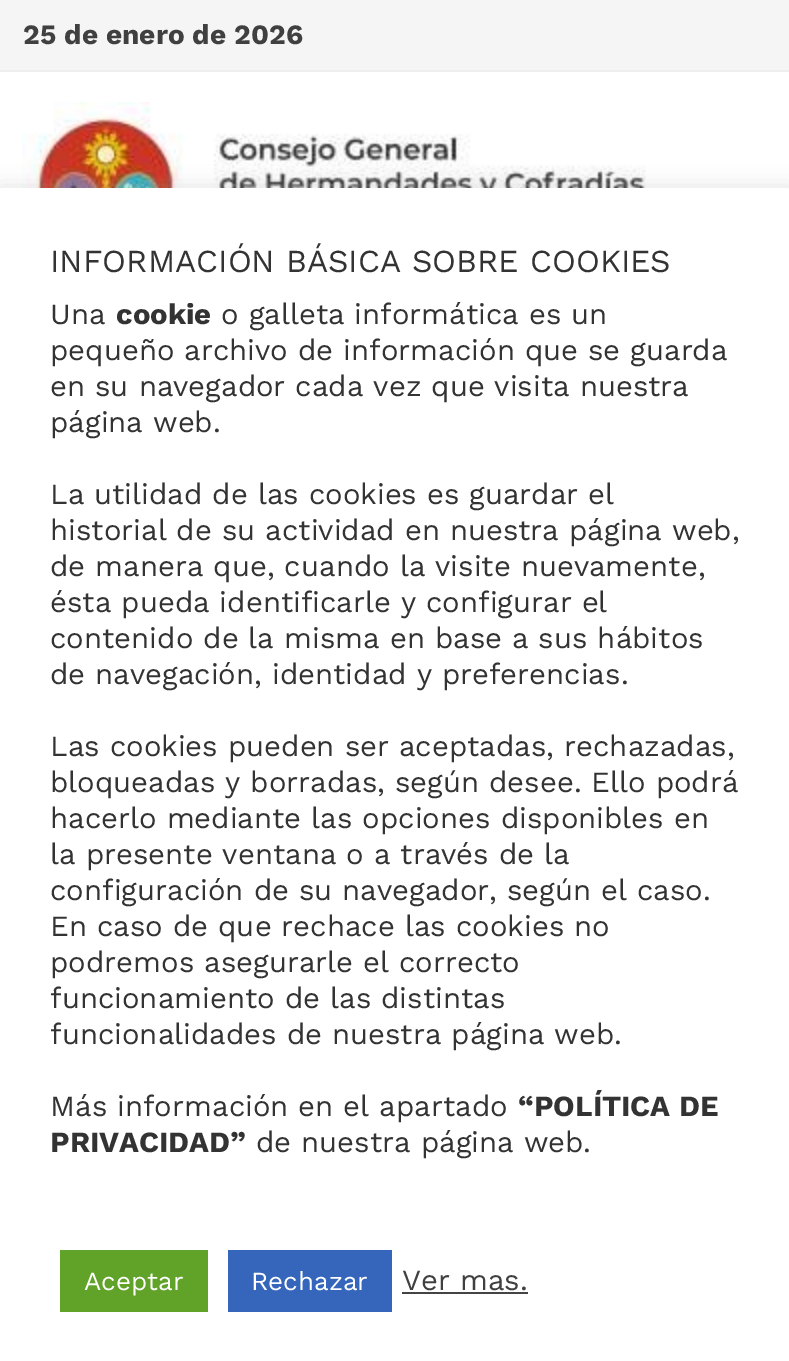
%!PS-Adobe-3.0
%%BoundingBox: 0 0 789 1361
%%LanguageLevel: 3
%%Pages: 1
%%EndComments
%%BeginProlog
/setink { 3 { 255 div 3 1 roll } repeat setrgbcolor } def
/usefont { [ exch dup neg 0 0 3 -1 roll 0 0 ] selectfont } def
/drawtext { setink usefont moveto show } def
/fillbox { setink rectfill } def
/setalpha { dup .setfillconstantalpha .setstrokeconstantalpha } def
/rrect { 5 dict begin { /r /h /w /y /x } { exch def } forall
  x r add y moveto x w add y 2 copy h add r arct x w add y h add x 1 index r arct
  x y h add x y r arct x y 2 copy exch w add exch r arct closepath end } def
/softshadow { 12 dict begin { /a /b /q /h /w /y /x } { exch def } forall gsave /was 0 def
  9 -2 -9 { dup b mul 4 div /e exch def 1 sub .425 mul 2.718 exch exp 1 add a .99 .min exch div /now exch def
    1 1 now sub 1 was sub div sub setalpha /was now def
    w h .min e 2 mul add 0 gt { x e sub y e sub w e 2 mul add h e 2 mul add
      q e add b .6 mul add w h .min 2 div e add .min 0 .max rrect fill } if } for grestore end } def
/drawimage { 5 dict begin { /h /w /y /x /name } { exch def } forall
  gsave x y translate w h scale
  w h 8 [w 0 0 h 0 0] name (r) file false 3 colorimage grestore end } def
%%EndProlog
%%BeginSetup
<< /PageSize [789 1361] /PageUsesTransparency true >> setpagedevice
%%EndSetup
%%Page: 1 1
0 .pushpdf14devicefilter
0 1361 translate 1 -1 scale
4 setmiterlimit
0 0 789 1361 255 255 255 fillbox
0 0 789 70 245 245 245 fillbox
0 70 789 2 238 238 238 fillbox
(25 de enero de 2026) 23 44 /WorkSans-Bold 28 64 64 64 drawtext
(assets/img1.rgb) 22 102 624 86 drawimage
172 171 171 setink
0 186 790 1174 0 10 0.3 softshadow
0 188 789 1173 255 255 255 fillbox
(INFORMACIÓN BÁSICA SOBRE COOKIES) 50 272 /WorkSans-Regular 32 51 51 51 drawtext
(Una) 50 324 /WorkSans-Regular 29.3 51 51 51 drawtext
(cookie) 116 324 /WorkSans-Bold 29.3 51 51 51 drawtext
(o galleta informática es un) 221 324 /WorkSans-Regular 29.3 51 51 51 drawtext
(pequeño archivo de información que se guarda) 50 360 /WorkSans-Regular 29.3 51 51 51 drawtext
(en su navegador cada vez que visita nuestra) 50 396 /WorkSans-Regular 29.3 51 51 51 drawtext
(página web.) 50 432 /WorkSans-Regular 29.3 51 51 51 drawtext
(La utilidad de las cookies es guardar el) 50 504 /WorkSans-Regular 29.3 51 51 51 drawtext
(historial de su actividad en nuestra página web,) 50 540 /WorkSans-Regular 29.3 51 51 51 drawtext
(de manera que, cuando la visite nuevamente,) 50 576 /WorkSans-Regular 29.3 51 51 51 drawtext
(ésta pueda identificarle y configurar el) 50 612 /WorkSans-Regular 29.3 51 51 51 drawtext
(contenido de la misma en base a sus hábitos) 50 648 /WorkSans-Regular 29.3 51 51 51 drawtext
(de navegación, identidad y preferencias.) 50 684 /WorkSans-Regular 29.3 51 51 51 drawtext
(Las cookies pueden ser aceptadas, rechazadas,) 50 756 /WorkSans-Regular 29.3 51 51 51 drawtext
(bloqueadas y borradas, según desee. Ello podrá) 50 792 /WorkSans-Regular 29.3 51 51 51 drawtext
(hacerlo mediante las opciones disponibles en) 50 828 /WorkSans-Regular 29.3 51 51 51 drawtext
(la presente ventana o a través de la) 50 864 /WorkSans-Regular 29.3 51 51 51 drawtext
(configuración de su navegador, según el caso.) 50 900 /WorkSans-Regular 29.3 51 51 51 drawtext
(En caso de que rechace las cookies no) 50 936 /WorkSans-Regular 29.3 51 51 51 drawtext
(podremos asegurarle el correcto) 50 972 /WorkSans-Regular 29.3 51 51 51 drawtext
(funcionamiento de las distintas) 50 1008 /WorkSans-Regular 29.3 51 51 51 drawtext
(funcionalidades de nuestra página web.) 50 1044 /WorkSans-Regular 29.3 51 51 51 drawtext
(Más información en el apartado) 50 1116 /WorkSans-Regular 29.3 51 51 51 drawtext
(“POLÍTICA DE) 518 1116 /WorkSans-Bold 29.3 51 51 51 drawtext
(PRIVACIDAD”) 50 1152 /WorkSans-Bold 29.3 51 51 51 drawtext
(de nuestra página web.) 256 1152 /WorkSans-Regular 29.3 51 51 51 drawtext
60 1250 148 62 97 162 41 fillbox
(Aceptar) 84 1290 /WorkSans-Regular 26 255 255 255 drawtext
228 1250 164 62 53 102 187 fillbox
(Rechazar) 251 1290 /WorkSans-Regular 26 255 255 255 drawtext
(Ver mas.) 402 1290 /WorkSans-Regular 29.3 64 64 64 drawtext
402 1292 126 2 68 68 68 fillbox
.poppdf14devicefilter showpage
%%EOF
